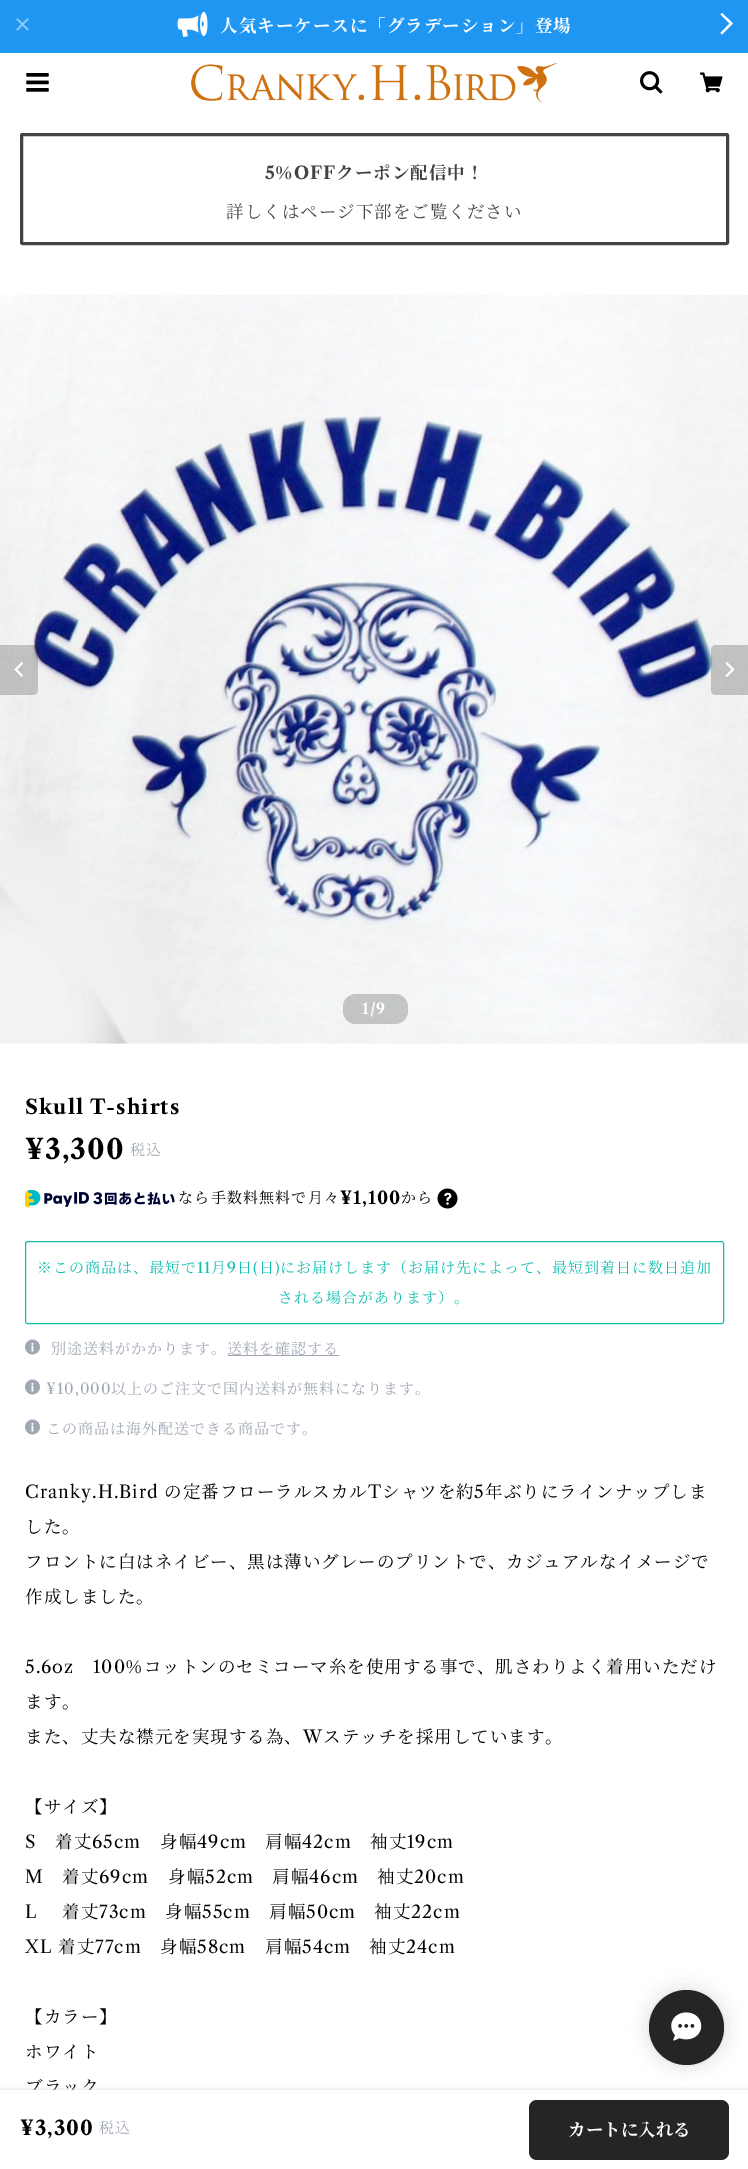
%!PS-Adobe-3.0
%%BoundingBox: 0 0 748 2169
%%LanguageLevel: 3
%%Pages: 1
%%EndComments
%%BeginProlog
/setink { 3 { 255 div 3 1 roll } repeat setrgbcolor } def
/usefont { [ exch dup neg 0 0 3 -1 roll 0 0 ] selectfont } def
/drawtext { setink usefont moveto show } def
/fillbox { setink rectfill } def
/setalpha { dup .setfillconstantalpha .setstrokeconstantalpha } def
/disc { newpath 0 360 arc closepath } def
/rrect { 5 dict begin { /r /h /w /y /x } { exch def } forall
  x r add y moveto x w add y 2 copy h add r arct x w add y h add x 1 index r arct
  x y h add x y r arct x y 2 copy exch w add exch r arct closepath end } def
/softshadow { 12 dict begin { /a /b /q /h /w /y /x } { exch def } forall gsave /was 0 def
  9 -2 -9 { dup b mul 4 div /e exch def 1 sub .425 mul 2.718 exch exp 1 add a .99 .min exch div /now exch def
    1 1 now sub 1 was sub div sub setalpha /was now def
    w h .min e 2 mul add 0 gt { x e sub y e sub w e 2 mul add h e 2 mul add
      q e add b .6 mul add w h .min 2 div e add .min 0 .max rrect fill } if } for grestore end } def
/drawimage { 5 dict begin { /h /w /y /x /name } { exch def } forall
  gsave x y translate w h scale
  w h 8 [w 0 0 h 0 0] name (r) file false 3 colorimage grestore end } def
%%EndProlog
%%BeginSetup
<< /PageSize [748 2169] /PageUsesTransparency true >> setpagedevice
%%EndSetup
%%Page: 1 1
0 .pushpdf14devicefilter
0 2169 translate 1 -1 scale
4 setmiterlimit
0 0 748 2169 255 255 255 fillbox
0 0 748 53 32 150 243 fillbox
(assets/img1.rgb) 16 18 13 13 drawimage
(assets/img2.rgb) 177 11 31 26 drawimage
/NotoSerifJP-Bold 17.5 usefont
255 255 255 setink
220 32 moveto 1 0 (人気キーケースに「グラデーション」登場) ashow
729.5 23.5 moveto 720.5 14.5 lineto 722 13 lineto 733 23.5 lineto 722 34.5 lineto 720.5 33 lineto closepath fill
(assets/img3.rgb) 26 73 23 19 drawimage
(assets/img4.rgb) 191 63 367 40 drawimage
(assets/img5.rgb) 640 71 23 23 drawimage
(assets/img6.rgb) 700 72 23 21 drawimage
67 67 67 setink
3 setlinewidth
21.5 134.5 706 109 1 rrect stroke
/LibreCaslonText-Bold 17.5 usefont
265 179 moveto 1 0 (5) ashow
/NotoSerifJP-Bold 17.5 usefont
275 179 moveto 1 0 (％) ashow
/LibreCaslonText-Bold 17.5 usefont
294 179 moveto 1 0 (OFF) ashow
/NotoSerifJP-Bold 17.5 usefont
336 179 moveto 1 0 (クーポン配信中！) ashow
/NotoSerifJP-Regular 17.5 usefont
226 218 moveto 1 0 (詳しくはページ下部をご覧ください) ashow
(assets/img7.rgb) 0 295 748 749 drawimage
0.2 setalpha
0 0 0 setink
0 645 moveto 33 645 lineto 36 645 38 647 38 650 curveto 38 690 lineto 38 693 36 695 33 695 curveto 0 695 lineto closepath fill
1 setalpha
(assets/img8.rgb) 14 662 9 15 drawimage
0.2 setalpha
716 645 moveto 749 645 lineto 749 695 lineto 716 695 lineto 713 695 711 693 711 690 curveto 711 650 lineto 711 647 713 645 716 645 curveto closepath fill
1 setalpha
(assets/img9.rgb) 725 662 10 15 drawimage
0.2 setalpha
343 994 65 30 13 rrect fill
/LibreCaslonText-Bold 15 usefont
1 setalpha
255 255 255 setink
362 1014 moveto 1 0 (1/9) ashow
/LibreCaslonText-Bold 20 usefont
0 0 0 setink
25 1114 moveto 1 0 (Skull T-shirts) ashow
/LibreCaslonText-Bold 27.5 usefont
25 1159 moveto 1 0 (¥3,300) ashow
/NotoSerifJP-Regular 15 usefont
160 167 180 setink
130 1155 moveto 1 0 (税込) ashow
(assets/img10.rgb) 25 1190 150 18 drawimage
0 0 0 setink
178 1203 moveto 1 0 (なら) ashow
211 1203 moveto 1 0 (手数料無料で) ashow
308 1203 moveto 1 0 (月々) ashow
/LibreCaslonText-Bold 17.5 usefont
340 1204 moveto 1 0 (¥1,100) ashow
/NotoSerifJP-Regular 15 usefont
401 1203 moveto 1 0 (から) ashow
(assets/img11.rgb) 437 1188 21 21 drawimage
17 190 174 setink
1 setlinewidth
25.5 1241.5 698 82 2 rrect stroke
37 1273 moveto 1 0 (※この商品は、最短で) ashow
/LibreCaslonText-Regular 15 usefont
197 1273 moveto 1 0 (11) ashow
/NotoSerifJP-Regular 15 usefont
211 1273 moveto 1 0 (月) ashow
/LibreCaslonText-Regular 15 usefont
227 1273 moveto 1 0 (9) ashow
/NotoSerifJP-Regular 15 usefont
237 1273 moveto 1 0 (日) ashow
/LibreCaslonText-Regular 15 usefont
253 1273 moveto 1 0 (\() ashow
/NotoSerifJP-Regular 15 usefont
259 1273 moveto 1 0 (日) ashow
/LibreCaslonText-Regular 15 usefont
275 1273 moveto 1 0 (\)) ashow
/NotoSerifJP-Regular 15 usefont
280 1273 moveto 1 0 (にお届けします（お届け先によって、最短到着日に数日追加) ashow
278 1303 moveto 1 0 (される場合があります）。) ashow
(assets/img12.rgb) 25 1339 15 16 drawimage
160 167 180 setink
51 1354 moveto 1 0 (別途送料がかかります。) ashow
228 1355 111 1 160 167 180 fillbox
227 1354 moveto 1 0 (送料を確認する) ashow
(assets/img12.rgb) 25 1379 15 16 drawimage
/LibreCaslonText-Regular 15 usefont
46 1394 moveto 1 0 (¥10,000) ashow
/NotoSerifJP-Regular 15 usefont
111 1394 moveto 1 0 (以上のご注文で国内送料が無料になります。) ashow
(assets/img12.rgb) 25 1419 15 16 drawimage
46 1434 moveto 1 0 (この商品は海外配送できる商品です。) ashow
/LibreCaslonText-Regular 17.5 usefont
0 0 0 setink
25 1498 moveto 1 0 (Cranky.H.Bird) ashow
/NotoSerifJP-Regular 17.5 usefont
164 1498 moveto 1 0 (の定番フローラルスカル) ashow
/LibreCaslonText-Regular 17.5 usefont
368 1498 moveto 1 0 (T) ashow
/NotoSerifJP-Regular 17.5 usefont
382 1498 moveto 1 0 (シャツを約) ashow
/LibreCaslonText-Regular 17.5 usefont
474 1498 moveto 1 0 (5) ashow
/NotoSerifJP-Regular 17.5 usefont
485 1498 moveto 1 0 (年ぶりにラインナップしま) ashow
25 1533 moveto 1 0 (した。) ashow
25 1568 moveto 1 0 (フロントに白はネイビー、黒は薄いグレーのプリントで、カジュアルなイメージで) ashow
25 1603 moveto 1 0 (作成しました。) ashow
/LibreCaslonText-Regular 17.5 usefont
25 1673 moveto 1 0 (5.6oz) ashow
93 1673 moveto 1 0 (100) ashow
/NotoSerifJP-Regular 17.5 usefont
125 1673 moveto 1 0 (％コットンのセミコーマ糸を使用する事で、肌さわりよく着用いただけ) ashow
25 1708 moveto 1 0 (ます。) ashow
25 1743 moveto 1 0 (また、丈夫な襟元を実現する為、) ashow
/LibreCaslonText-Regular 17.5 usefont
303 1743 moveto 1 0 (W) ashow
/NotoSerifJP-Regular 17.5 usefont
323 1743 moveto 1 0 (ステッチを採用しています。) ashow
25 1813 moveto 1 0 (【サイズ】) ashow
/LibreCaslonText-Regular 17.5 usefont
25 1848 moveto 1 0 (S) ashow
/NotoSerifJP-Regular 17.5 usefont
55 1848 moveto 1 0 (着丈) ashow
/LibreCaslonText-Regular 17.5 usefont
92 1848 moveto 1 0 (65cm) ashow
/NotoSerifJP-Regular 17.5 usefont
160 1848 moveto 1 0 (身幅) ashow
/LibreCaslonText-Regular 17.5 usefont
197 1848 moveto 1 0 (49cm) ashow
/NotoSerifJP-Regular 17.5 usefont
265 1848 moveto 1 0 (肩幅) ashow
/LibreCaslonText-Regular 17.5 usefont
302 1848 moveto 1 0 (42cm) ashow
/NotoSerifJP-Regular 17.5 usefont
370 1848 moveto 1 0 (袖丈) ashow
/LibreCaslonText-Regular 17.5 usefont
407 1848 moveto 1 0 (19cm) ashow
25 1883 moveto 1 0 (M) ashow
/NotoSerifJP-Regular 17.5 usefont
62 1883 moveto 1 0 (着丈) ashow
/LibreCaslonText-Regular 17.5 usefont
99 1883 moveto 1 0 (69cm) ashow
/NotoSerifJP-Regular 17.5 usefont
168 1883 moveto 1 0 (身幅) ashow
/LibreCaslonText-Regular 17.5 usefont
205 1883 moveto 1 0 (52cm) ashow
/NotoSerifJP-Regular 17.5 usefont
272 1883 moveto 1 0 (肩幅) ashow
/LibreCaslonText-Regular 17.5 usefont
309 1883 moveto 1 0 (46cm) ashow
/NotoSerifJP-Regular 17.5 usefont
377 1883 moveto 1 0 (袖丈) ashow
/LibreCaslonText-Regular 17.5 usefont
414 1883 moveto 1 0 (20cm) ashow
25 1918 moveto 1 0 (L) ashow
/NotoSerifJP-Regular 17.5 usefont
62 1918 moveto 1 0 (着丈) ashow
/LibreCaslonText-Regular 17.5 usefont
99 1918 moveto 1 0 (73cm) ashow
/NotoSerifJP-Regular 17.5 usefont
165 1918 moveto 1 0 (身幅) ashow
/LibreCaslonText-Regular 17.5 usefont
202 1918 moveto 1 0 (55cm) ashow
/NotoSerifJP-Regular 17.5 usefont
269 1918 moveto 1 0 (肩幅) ashow
/LibreCaslonText-Regular 17.5 usefont
306 1918 moveto 1 0 (50cm) ashow
/NotoSerifJP-Regular 17.5 usefont
374 1918 moveto 1 0 (袖丈) ashow
/LibreCaslonText-Regular 17.5 usefont
411 1918 moveto 1 0 (22cm) ashow
25 1953 moveto 1 0 (XL) ashow
/NotoSerifJP-Regular 17.5 usefont
58 1953 moveto 1 0 (着丈) ashow
/LibreCaslonText-Regular 17.5 usefont
95 1953 moveto 1 0 (77cm) ashow
/NotoSerifJP-Regular 17.5 usefont
160 1953 moveto 1 0 (身幅) ashow
/LibreCaslonText-Regular 17.5 usefont
197 1953 moveto 1 0 (58cm) ashow
/NotoSerifJP-Regular 17.5 usefont
265 1953 moveto 1 0 (肩幅) ashow
/LibreCaslonText-Regular 17.5 usefont
302 1953 moveto 1 0 (54cm) ashow
/NotoSerifJP-Regular 17.5 usefont
369 1953 moveto 1 0 (袖丈) ashow
/LibreCaslonText-Regular 17.5 usefont
406 1953 moveto 1 0 (24cm) ashow
/NotoSerifJP-Regular 17.5 usefont
25 2023 moveto 1 0 (【カラー】) ashow
25 2058 moveto 1 0 (ホワイト) ashow
25 2093 moveto 1 0 (ブラック) ashow
221 221 221 setink
0 2090 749 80 0 2.5 1 softshadow
0 2090 748 79 255 255 255 fillbox
51 66 88 setink
649 1990 75 75 37.5 9.5 0.2 softshadow
37 37 37 setink
686.5 2027.5 37.5 disc fill
(assets/img13.rgb) 671 2012 31 29 drawimage
/LibreCaslonText-Bold 20 usefont
0 0 0 setink
20 2135 moveto 1 0 (¥3,300) ashow
/NotoSerifJP-Regular 15 usefont
160 167 180 setink
99 2133 moveto 1 0 (税込) ashow
37 37 37 setink
529 2100 200 60 8 rrect fill
(カートに入れる) 568 2136 /NotoSerifJP-Bold 17.5 255 255 255 drawtext
.poppdf14devicefilter showpage
%%EOF
